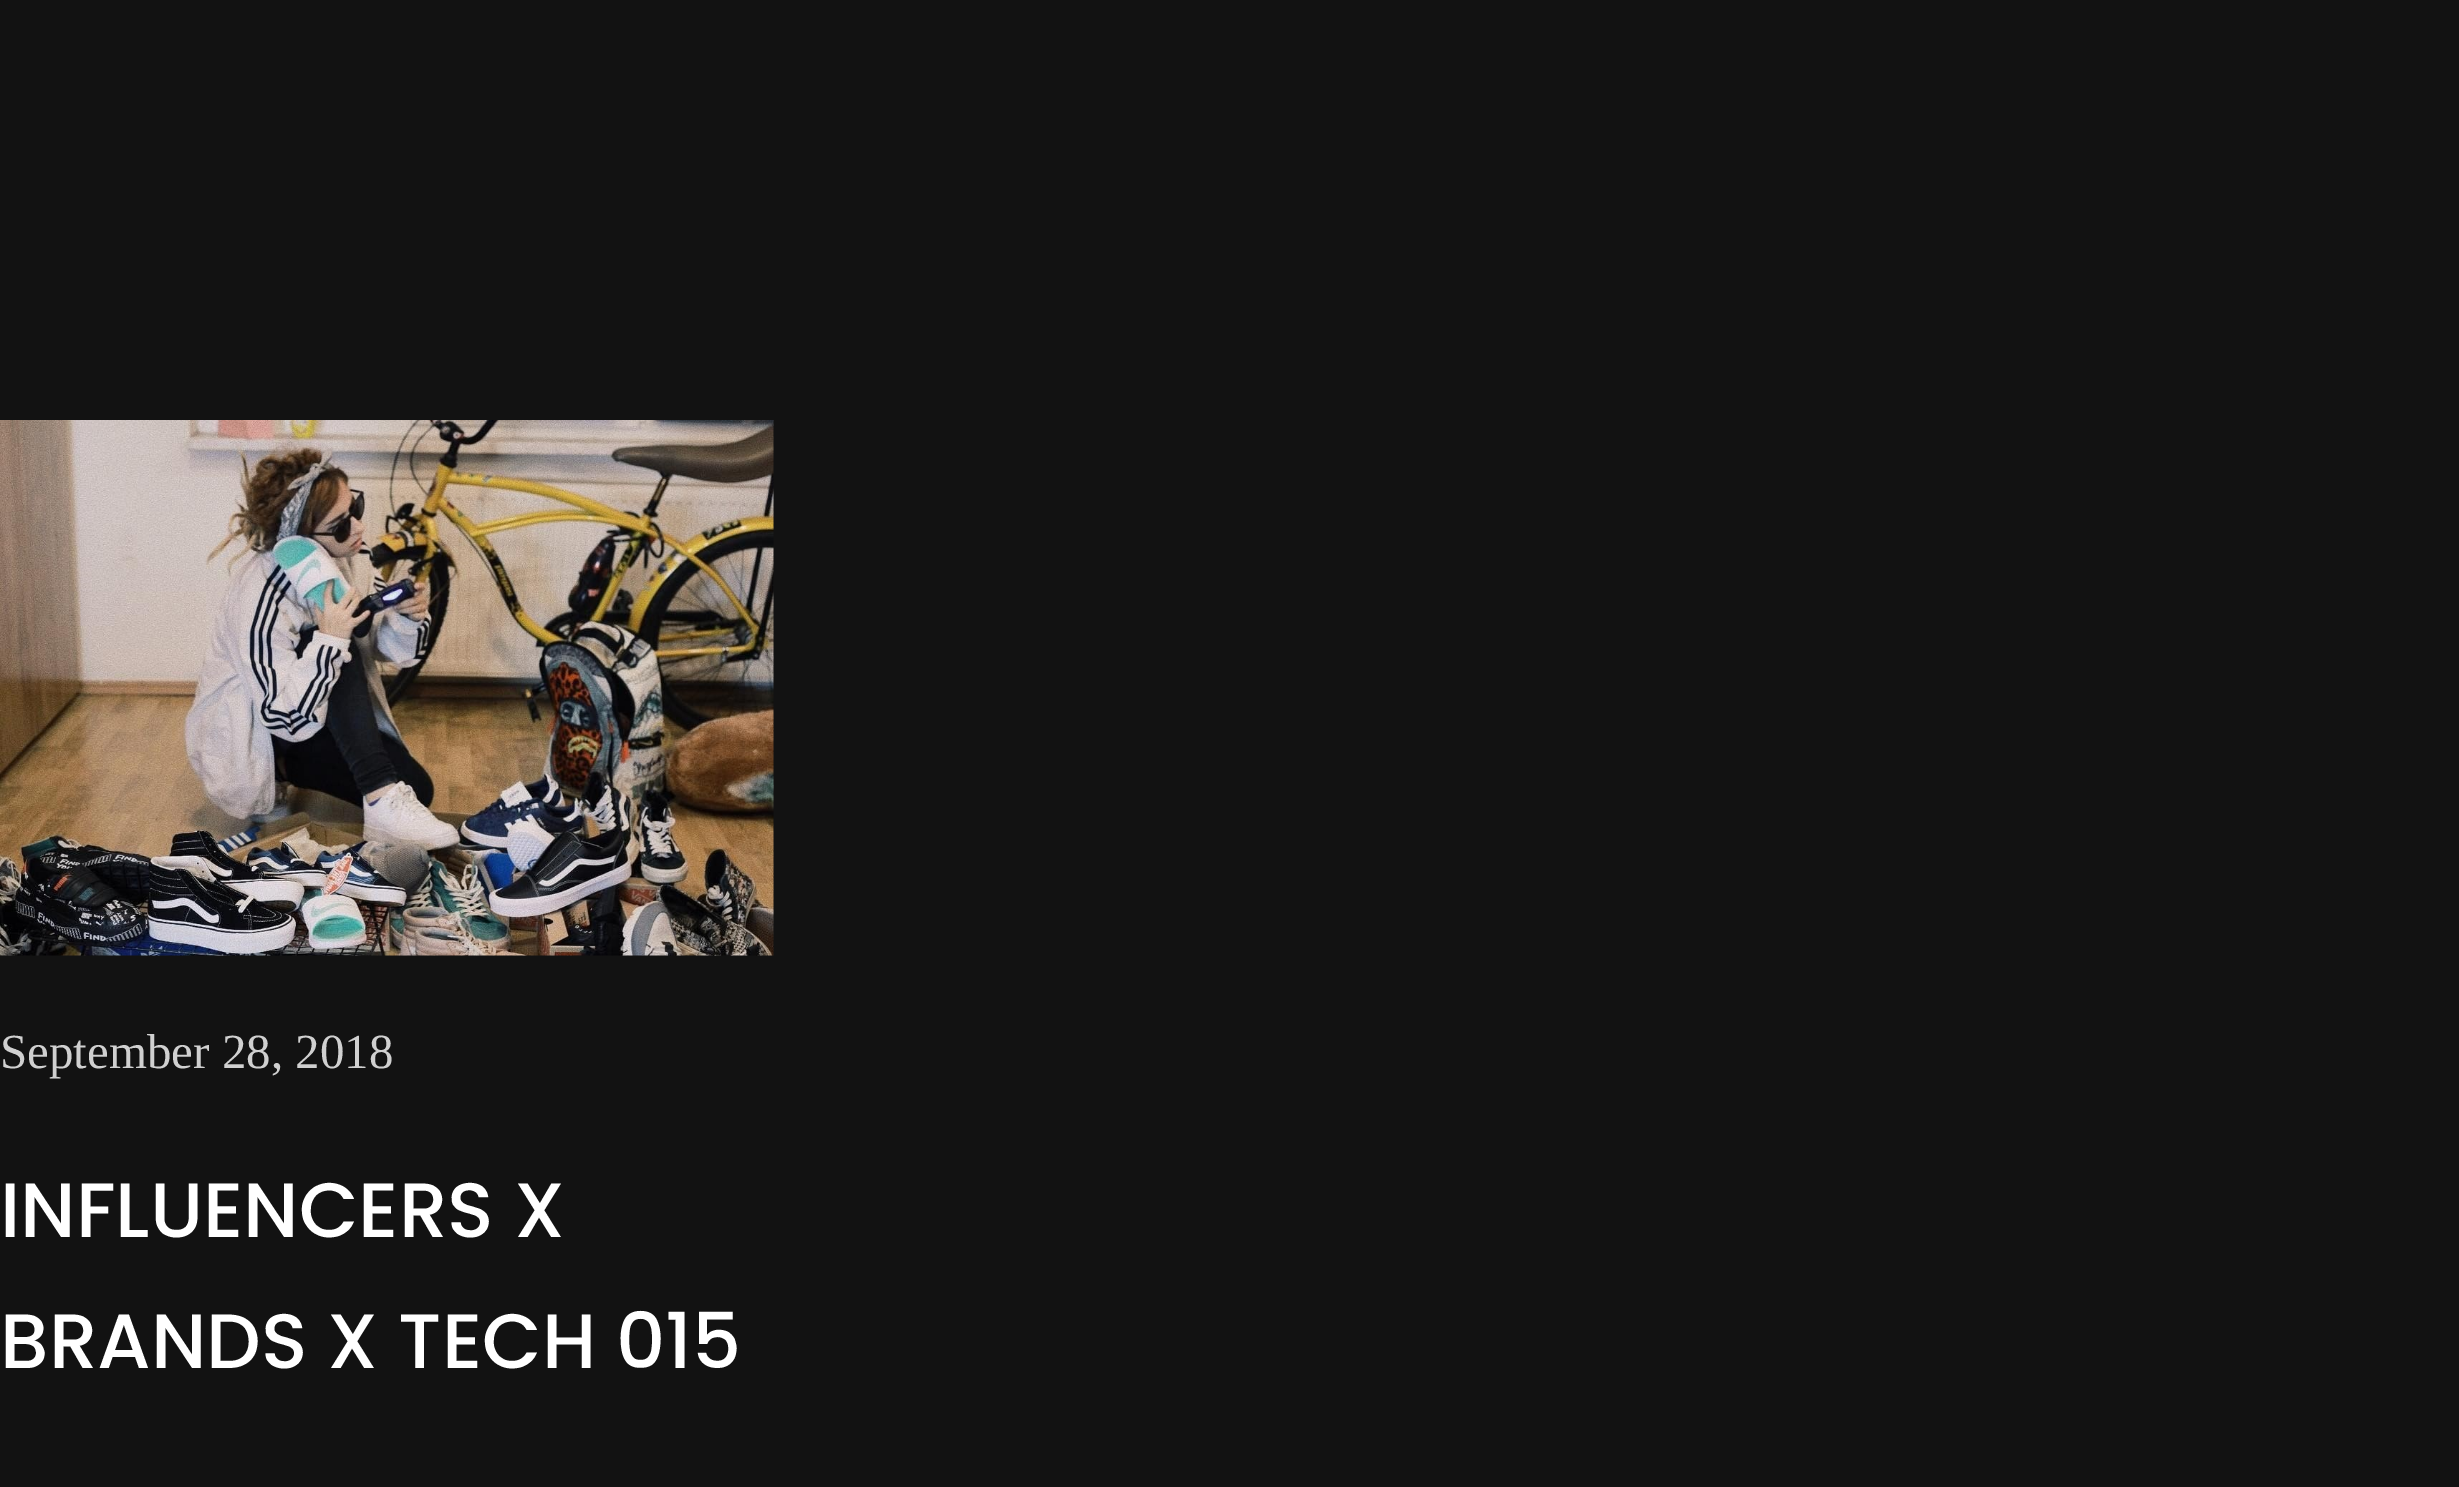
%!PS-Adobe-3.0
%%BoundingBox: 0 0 2459 1487
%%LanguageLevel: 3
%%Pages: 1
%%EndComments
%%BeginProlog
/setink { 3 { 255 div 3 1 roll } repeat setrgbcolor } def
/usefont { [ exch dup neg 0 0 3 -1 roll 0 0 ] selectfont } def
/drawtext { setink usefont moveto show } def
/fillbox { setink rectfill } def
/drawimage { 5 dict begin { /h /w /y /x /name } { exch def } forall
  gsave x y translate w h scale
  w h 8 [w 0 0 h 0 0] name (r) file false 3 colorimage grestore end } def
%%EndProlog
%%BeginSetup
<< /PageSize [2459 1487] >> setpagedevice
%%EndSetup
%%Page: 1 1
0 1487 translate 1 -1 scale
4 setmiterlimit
0 0 2459 1487 18 18 18 fillbox
(assets/img1.rgb) 0 420 774 536 drawimage
(September 28, 2018) 0 1068 /LiberationSerif-Regular 49 208 208 208 drawtext
(INFLUENCERS X) 0 1237 /Poppins-Medium 77 255 255 255 drawtext
(BRANDS X TECH 015) 0 1368 /Poppins-Medium 77 255 255 255 drawtext
showpage
%%EOF
